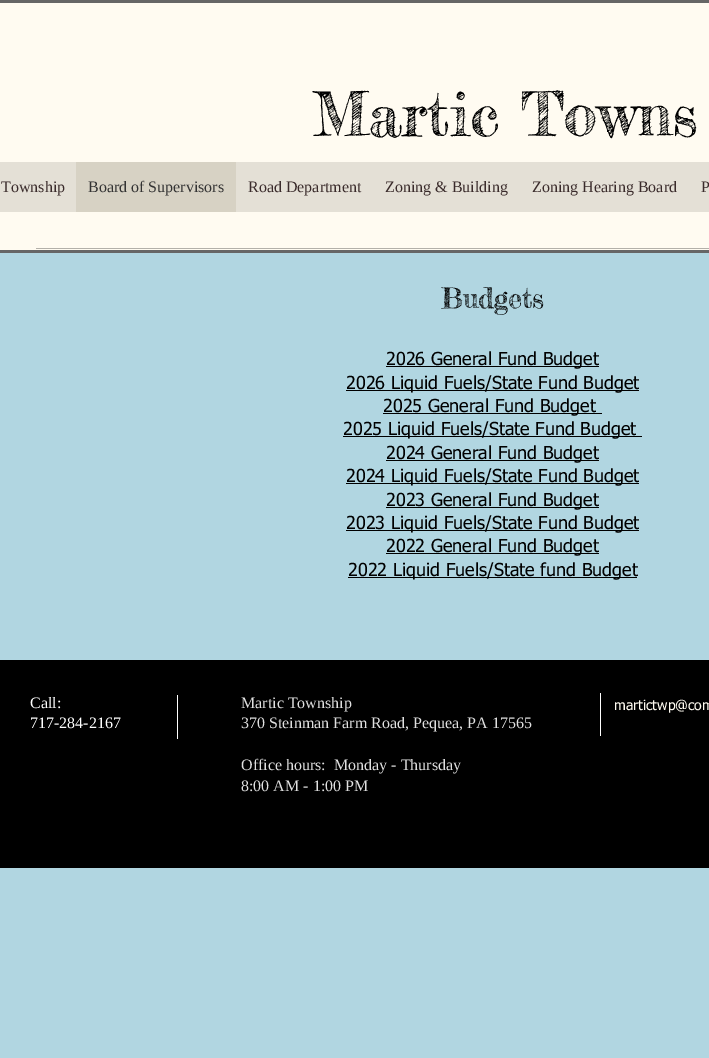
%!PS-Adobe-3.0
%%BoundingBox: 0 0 709 1058
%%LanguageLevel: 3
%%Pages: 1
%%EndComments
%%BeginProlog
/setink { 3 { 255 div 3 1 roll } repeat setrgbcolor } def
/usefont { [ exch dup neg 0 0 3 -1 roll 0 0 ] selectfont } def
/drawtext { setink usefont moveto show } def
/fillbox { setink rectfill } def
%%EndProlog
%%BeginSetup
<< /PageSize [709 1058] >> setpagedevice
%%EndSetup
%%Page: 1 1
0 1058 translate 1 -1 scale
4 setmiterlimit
0 0 709 1058 177 214 225 fillbox
0 3 709 247 255 251 241 fillbox
0 0 709 3 102 102 102 fillbox
0 250 709 3 102 102 102 fillbox
(Martic Towns) 313 136 /FrederickatheGreat-Regular 60 0 0 0 drawtext
0 162 709 50 228 224 214 fillbox
(Township) 1 192 /LiberationSerif-Regular 16 58 43 43 drawtext
76 162 160 50 215 210 196 fillbox
(Board of Supervisors) 88 192 /LiberationSerif-Regular 16 51 51 51 drawtext
(Road Department) 248 192 /LiberationSerif-Regular 16 58 43 43 drawtext
(Zoning & Building) 385 192 /LiberationSerif-Regular 16 58 43 43 drawtext
(Zoning Hearing Board) 532 192 /LiberationSerif-Regular 16 58 43 43 drawtext
(P) 701 192 /LiberationSerif-Regular 16 58 43 43 drawtext
36 248 673 1 179 176 169 fillbox
(Budgets) 441 308 /FrederickatheGreat-Regular 28 0 0 0 drawtext
386 366 213 1 0 0 0 fillbox
(2026 General Fund Budget) 386 365 /tahoma-Regular 18 0 0 0 drawtext
346 390 293 1 0 0 0 fillbox
(2026 Liquid Fuels/State Fund Budget) 346 389 /tahoma-Regular 18 0 0 0 drawtext
383 413 219 1 0 0 0 fillbox
(2025 General Fund Budget) 383 412 /tahoma-Regular 18 0 0 0 drawtext
343 436 299 1 0 0 0 fillbox
(2025 Liquid Fuels/State Fund Budget) 343 435 /tahoma-Regular 18 0 0 0 drawtext
386 460 213 1 0 0 0 fillbox
(2024 General Fund Budget) 386 459 /tahoma-Regular 18 0 0 0 drawtext
346 483 293 1 0 0 0 fillbox
(2024 Liquid Fuels/State Fund Budget) 346 482 /tahoma-Regular 18 0 0 0 drawtext
386 507 213 1 0 0 0 fillbox
(2023 General Fund Budget) 386 506 /tahoma-Regular 18 0 0 0 drawtext
346 530 293 1 0 0 0 fillbox
(2023 Liquid Fuels/State Fund Budget) 346 529 /tahoma-Regular 18 0 0 0 drawtext
386 553 213 1 0 0 0 fillbox
(2022 General Fund Budget) 386 552 /tahoma-Regular 18 0 0 0 drawtext
348 577 289 1 0 0 0 fillbox
(2022 Liquid Fuels/State fund Budget) 348 576 /tahoma-Regular 18 0 0 0 drawtext
0 660 709 208 0 0 0 fillbox
(Call:) 30 708 /LiberationSerif-Regular 16 255 255 255 drawtext
(717-284-2167) 30 728 /LiberationSerif-Regular 16 255 255 255 drawtext
177 695 1 44 255 255 255 fillbox
(Martic Township) 241 708 /LiberationSerif-Regular 16 224 224 224 drawtext
(370 Steinman Farm Road, Pequea, PA 17565) 241 728 /LiberationSerif-Regular 16 224 224 224 drawtext
(Office hours:  Monday - Thursday) 241 770 /LiberationSerif-Regular 16 224 224 224 drawtext
(8:00 AM - 1:00 PM) 241 791 /LiberationSerif-Regular 16 224 224 224 drawtext
600 693 1 43 255 255 255 fillbox
(martictwp@com) 614 710 /tahoma-Regular 14 255 251 241 drawtext
showpage
%%EOF
